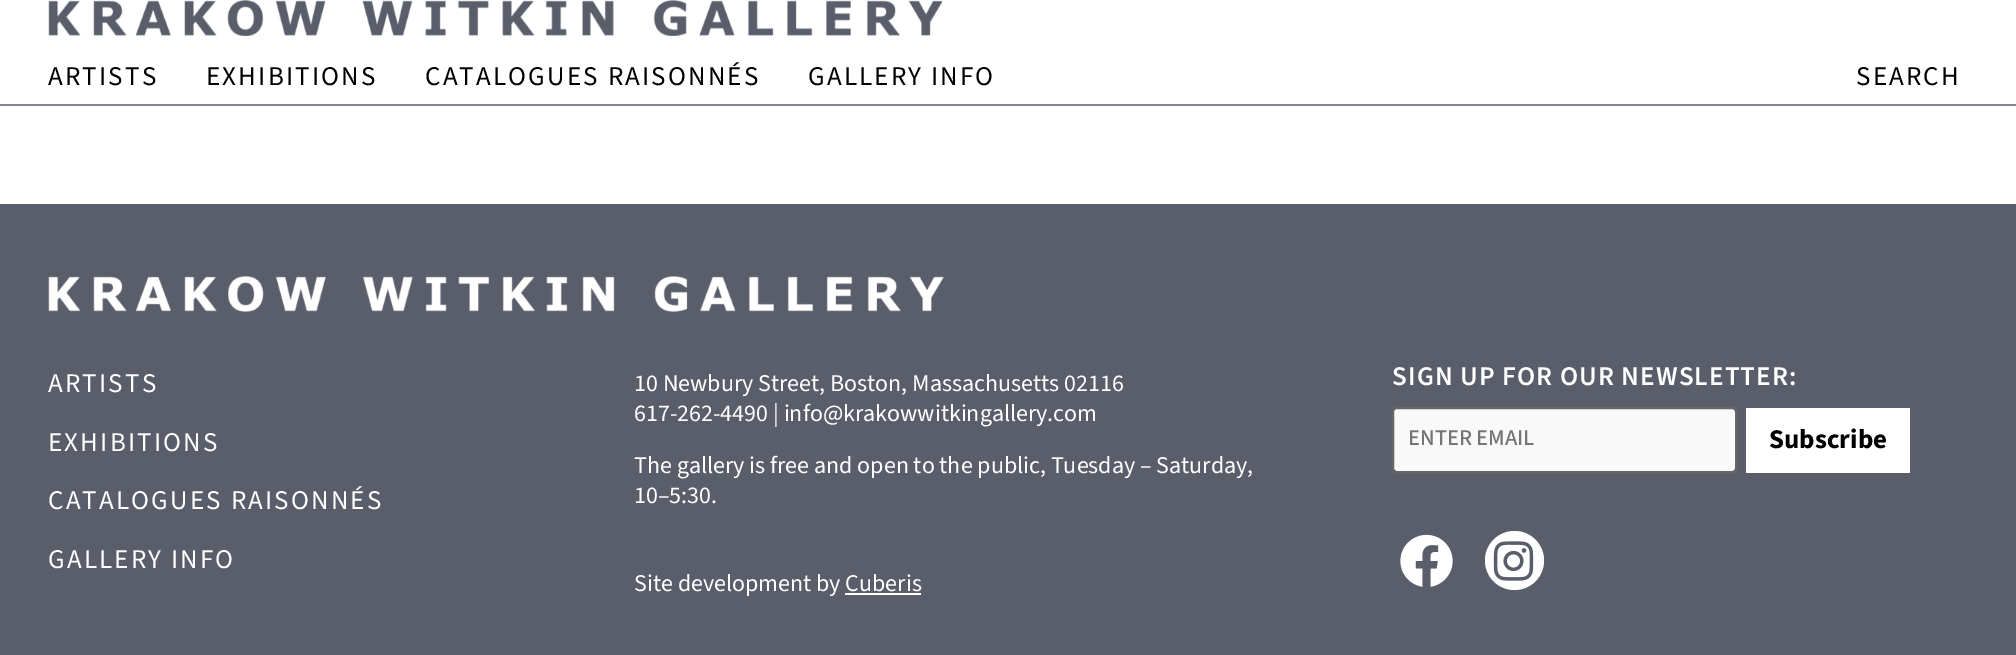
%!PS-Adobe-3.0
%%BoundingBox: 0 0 2016 655
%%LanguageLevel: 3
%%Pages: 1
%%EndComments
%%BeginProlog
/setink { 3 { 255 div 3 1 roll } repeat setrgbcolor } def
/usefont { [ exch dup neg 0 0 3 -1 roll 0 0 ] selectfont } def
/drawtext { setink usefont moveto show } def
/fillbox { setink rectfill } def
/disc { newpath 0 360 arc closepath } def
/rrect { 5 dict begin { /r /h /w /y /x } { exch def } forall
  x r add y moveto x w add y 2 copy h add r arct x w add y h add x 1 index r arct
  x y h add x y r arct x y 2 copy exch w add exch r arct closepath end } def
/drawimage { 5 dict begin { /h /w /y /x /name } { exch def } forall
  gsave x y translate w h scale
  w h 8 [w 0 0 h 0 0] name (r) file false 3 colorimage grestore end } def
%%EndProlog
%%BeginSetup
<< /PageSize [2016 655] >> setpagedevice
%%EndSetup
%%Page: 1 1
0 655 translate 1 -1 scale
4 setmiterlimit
0 0 2016 655 255 255 255 fillbox
0 104 2016 2 131 134 143 fillbox
(assets/img1.rgb) 48 0 894 36 drawimage
/SourceSans3-Regular 27 usefont
0 0 0 setink
48 85 moveto 2.2 0 (ARTISTS) ashow
206 85 moveto 2.2 0 (EXHIBITIONS) ashow
425 85 moveto 2.2 0 (CATALOGUES RAISONNÉS) ashow
808 85 moveto 2.2 0 (GALLERY INFO) ashow
1856 85 moveto 2.2 0 (SEARCH) ashow
0 204 2016 451 90 94 106 fillbox
(assets/img2.rgb) 48 276 896 36 drawimage
255 255 255 setink
48 392 moveto 2.2 0 (ARTISTS) ashow
48 451 moveto 2.2 0 (EXHIBITIONS) ashow
48 509 moveto 2.2 0 (CATALOGUES RAISONNÉS) ashow
48 568 moveto 2.2 0 (GALLERY INFO) ashow
(10 Newbury Street, Boston, Massachusetts 02116) 634 391 /SourceSans3-Regular 24 255 255 255 drawtext
(617-262-4490 | info@krakowwitkingallery.com) 634 421 /SourceSans3-Regular 24 255 255 255 drawtext
(The gallery is free and open to the public, Tuesday – Saturday,) 634 473 /SourceSans3-Regular 24 255 255 255 drawtext
(10–5:30.) 634 503 /SourceSans3-Regular 24 255 255 255 drawtext
(Site development by Cuberis) 634 591 /SourceSans3-Regular 24 255 255 255 drawtext
845 593 76 2 255 255 255 fillbox
/SourceSans3-SemiBold 27 usefont
1392 385 moveto 1.1 0 (SIGN UP FOR OUR NEWSLETTER:) ashow
249 249 249 setink
1393 408 343 64 4 rrect gsave fill grestore
102 102 102 setink
2 setlinewidth
stroke
(ENTER EMAIL) 1408 445 /SourceSans3-Medium 22.5 117 117 117 drawtext
1746 408 164 65 255 255 255 fillbox
(Subscribe) 1769 448 /SourceSans3-Bold 27 0 0 0 drawtext
(assets/img3.rgb) 1400 534 53 53 drawimage
255 255 255 setink
1514.5 560.5 29.5 disc fill
(assets/img4.rgb) 1493 541 41 40 drawimage
showpage
%%EOF
